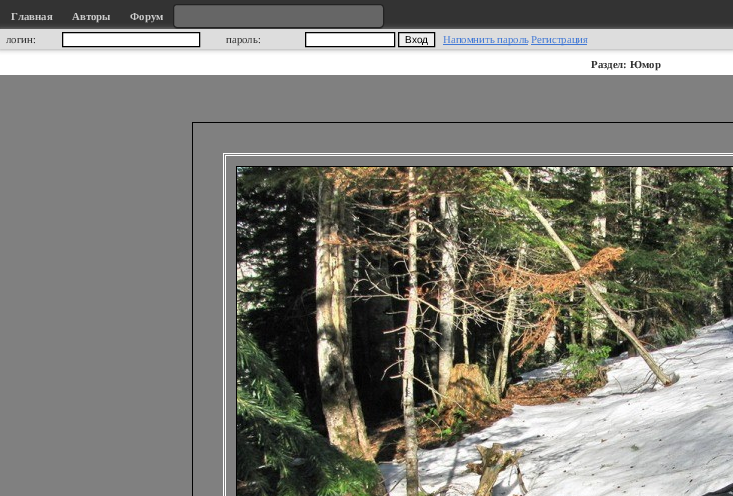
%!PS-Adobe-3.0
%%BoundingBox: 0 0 733 496
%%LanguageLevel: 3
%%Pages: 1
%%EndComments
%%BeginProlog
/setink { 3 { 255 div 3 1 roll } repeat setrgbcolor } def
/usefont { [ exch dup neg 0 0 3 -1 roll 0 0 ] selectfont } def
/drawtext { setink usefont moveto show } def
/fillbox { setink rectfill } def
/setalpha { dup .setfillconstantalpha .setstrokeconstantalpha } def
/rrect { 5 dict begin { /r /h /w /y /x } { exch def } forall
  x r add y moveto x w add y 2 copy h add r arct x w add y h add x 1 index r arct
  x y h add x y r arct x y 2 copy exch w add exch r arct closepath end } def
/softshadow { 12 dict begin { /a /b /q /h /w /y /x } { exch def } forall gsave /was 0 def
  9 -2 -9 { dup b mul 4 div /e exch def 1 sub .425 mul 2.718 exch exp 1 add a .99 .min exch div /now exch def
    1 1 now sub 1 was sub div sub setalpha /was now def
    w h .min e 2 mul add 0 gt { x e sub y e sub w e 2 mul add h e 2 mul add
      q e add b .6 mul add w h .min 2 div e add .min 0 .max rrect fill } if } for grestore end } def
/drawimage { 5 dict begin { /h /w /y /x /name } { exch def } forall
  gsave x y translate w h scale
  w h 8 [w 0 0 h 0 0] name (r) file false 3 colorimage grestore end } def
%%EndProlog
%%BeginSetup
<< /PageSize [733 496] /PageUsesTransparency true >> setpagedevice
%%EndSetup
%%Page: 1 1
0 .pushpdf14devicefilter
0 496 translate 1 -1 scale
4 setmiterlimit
0 0 733 496 255 255 255 fillbox
0 0 733 29 51 51 51 fillbox
136 136 136 setink
0 29 733 20 0 2.5 1 softshadow
(Главная) 11 20 /LiberationSerif-Bold 10.75 204 204 204 drawtext
(Авторы) 72 20 /LiberationSerif-Bold 10.75 204 204 204 drawtext
(Форум) 130 20 /LiberationSerif-Bold 10.75 204 204 204 drawtext
68 68 68 setink
173 24 moveto 173 25 lineto 173 27 175 29 177 29 curveto 380 29 lineto 382 29 384 27 384 25 curveto 384 24 lineto 384 26 382 28 380 28 curveto 177 28 lineto 175 28 173 26 173 24 curveto closepath fill
102 102 102 setink
173.5 4.5 210 23 3.5 rrect gsave fill grestore
34 34 34 setink
stroke
0 29 733 20 221 221 221 fillbox
(логин:) 6 43 /LiberationSerif-Regular 10.75 51 51 51 drawtext
255 255 255 setink
62.5 32.5 moveto 199.5 32.5 lineto 199.5 46.5 lineto 62.5 46.5 lineto closepath gsave fill grestore
0 0 0 setink
stroke
(пароль:) 226 43 /LiberationSerif-Regular 10.75 51 51 51 drawtext
255 255 255 setink
305.5 32.5 moveto 394.5 32.5 lineto 394.5 46.5 lineto 305.5 46.5 lineto closepath gsave fill grestore
0 0 0 setink
stroke
239 239 239 setink
398.5 32.5 moveto 434.5 32.5 lineto 434.5 46.5 lineto 398.5 46.5 lineto closepath gsave fill grestore
0 0 0 setink
stroke
(Вход) 405 43 /LiberationSans-Regular 10 0 0 0 drawtext
443 44 85 1 66 121 214 fillbox
(Напомнить пароль) 443 43 /LiberationSerif-Regular 10.75 66 121 214 drawtext
531 44 56 1 66 121 214 fillbox
(Регистрация) 531 43 /LiberationSerif-Regular 10.75 66 121 214 drawtext
0 75 733 421 128 128 128 fillbox
(Раздел: Юмор) 591 68 /LiberationSerif-Bold 10.75 51 51 51 drawtext
192 122 541 374 0 0 0 fillbox
193 123 540 373 128 128 128 fillbox
223 153 510 343 255 255 255 fillbox
224 154 509 342 128 128 128 fillbox
225 155 508 341 255 255 255 fillbox
226 156 507 340 128 128 128 fillbox
236 166 497 330 0 0 0 fillbox
(assets/img1.rgb) 237 167 496 329 drawimage
.poppdf14devicefilter showpage
%%EOF
